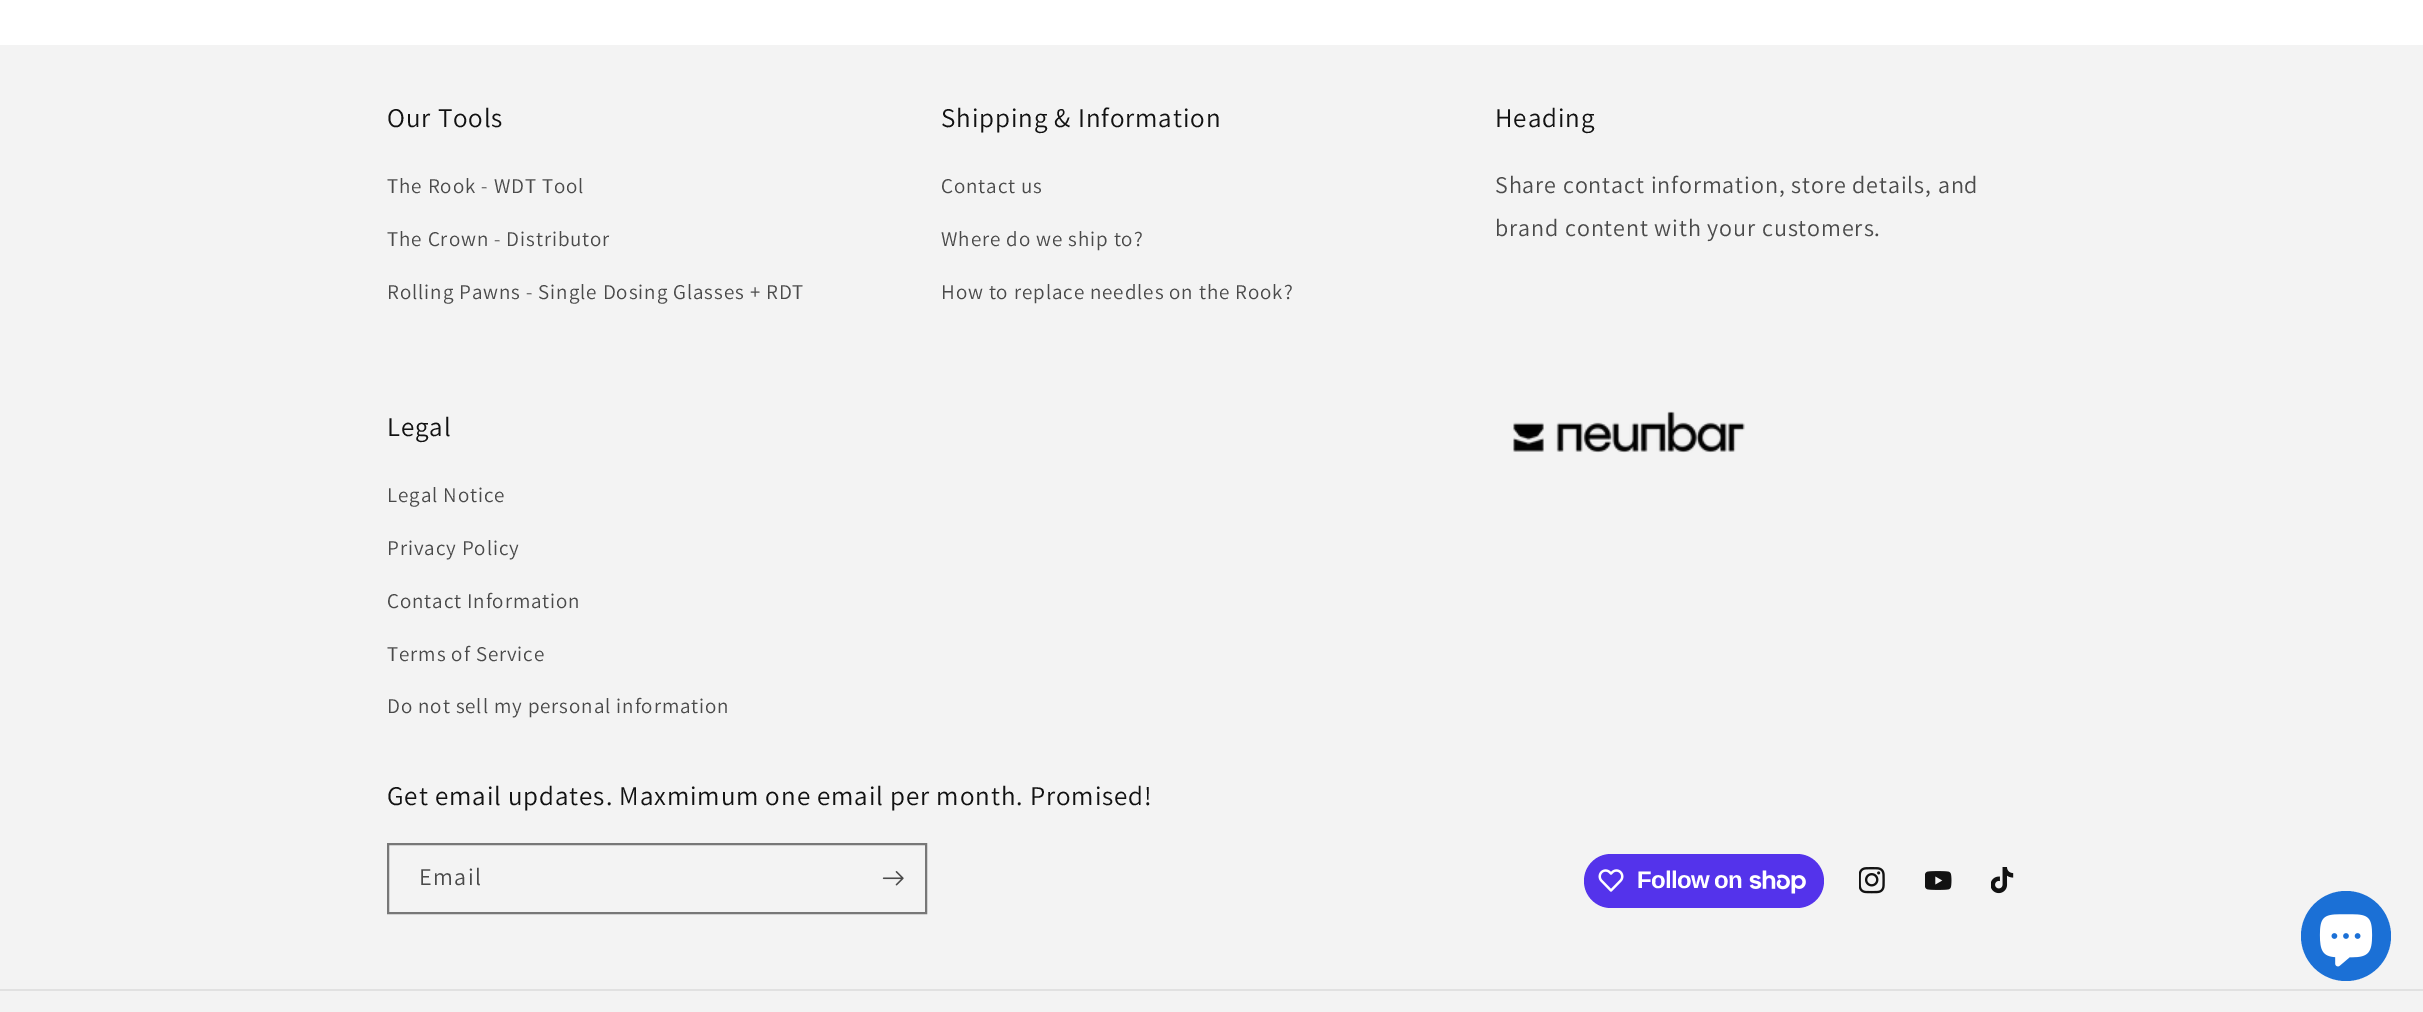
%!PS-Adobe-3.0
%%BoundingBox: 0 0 2423 1012
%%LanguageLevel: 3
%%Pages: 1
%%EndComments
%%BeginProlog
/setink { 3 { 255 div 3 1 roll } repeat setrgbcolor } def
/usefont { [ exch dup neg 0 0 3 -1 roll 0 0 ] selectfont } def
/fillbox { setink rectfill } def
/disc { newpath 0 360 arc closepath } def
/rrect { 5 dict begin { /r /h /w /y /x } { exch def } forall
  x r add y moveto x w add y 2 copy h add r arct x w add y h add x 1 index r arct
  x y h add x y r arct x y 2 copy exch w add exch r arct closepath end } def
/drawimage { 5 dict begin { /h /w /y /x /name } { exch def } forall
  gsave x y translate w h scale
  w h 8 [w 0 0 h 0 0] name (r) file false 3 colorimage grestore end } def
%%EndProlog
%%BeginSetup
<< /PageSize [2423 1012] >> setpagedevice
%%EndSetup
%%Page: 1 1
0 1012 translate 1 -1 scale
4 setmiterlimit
0 0 2423 1012 255 255 255 fillbox
0 45 2423 967 243 243 243 fillbox
/Assistant-Regular 27 usefont
18 18 18 setink
387 127 moveto 0.9 0 (Our Tools) ashow
/Assistant-Regular 21 usefont
74 74 74 setink
387 193 moveto 0.9 0 (The Rook - WDT Tool) ashow
387 246 moveto 0.9 0 (The Crown - Distributor) ashow
387 299 moveto 0.9 0 (Rolling Pawns - Single Dosing Glasses + RDT) ashow
/Assistant-Regular 27 usefont
18 18 18 setink
941 127 moveto 0.9 0 (Shipping & Information) ashow
/Assistant-Regular 21 usefont
74 74 74 setink
941 193 moveto 0.9 0 (Contact us) ashow
941 246 moveto 0.9 0 (Where do we ship to?) ashow
941 299 moveto 0.9 0 (How to replace needles on the Rook?) ashow
/Assistant-Regular 27 usefont
18 18 18 setink
1495 127 moveto 0.9 0 (Heading) ashow
/Assistant-Regular 24 usefont
74 74 74 setink
1495 193 moveto 0.9 0 (Share contact information, store details, and) ashow
1495 236 moveto 0.9 0 (brand content with your customers.) ashow
/Assistant-Regular 27 usefont
18 18 18 setink
387 436 moveto 0.9 0 (Legal) ashow
/Assistant-Regular 21 usefont
74 74 74 setink
387 502 moveto 0.9 0 (Legal Notice) ashow
387 555 moveto 0.9 0 (Privacy Policy) ashow
387 608 moveto 0.9 0 (Contact Information) ashow
387 661 moveto 0.9 0 (Terms of Service) ashow
387 713 moveto 0.9 0 (Do not sell my personal information) ashow
(assets/img1.rgb) 1513 411 232 42 drawimage
/Assistant-Regular 27 usefont
18 18 18 setink
387 805 moveto 0.9 0 (Get email updates. Maxmimum one email per month. Promised!) ashow
119 119 119 setink
2 setlinewidth
388 844 538 69 rectstroke
/Assistant-Regular 24 usefont
74 74 74 setink
419 885 moveto 1.5 0 (Email) ashow
(assets/img2.rgb) 882 871 22 15 drawimage
84 51 235 setink
1584 854 240 54 27 rrect fill
(assets/img3.rgb) 1598 869 26 23 drawimage
/LiberationSans-Bold 24 usefont
255 255 255 setink
1637 888 moveto -0.75 0 (Follow on) ashow
(assets/img4.rgb) 1749 870 57 24 drawimage
(assets/img5.rgb) 1859 867 26 27 drawimage
(assets/img6.rgb) 1925 871 27 19 drawimage
(assets/img7.rgb) 1991 867 23 27 drawimage
0 989 2423 2 225 225 225 fillbox
27 112 214 setink
2346 936 45 disc fill
(assets/img8.rgb) 2319 914 54 53 drawimage
showpage
%%EOF
